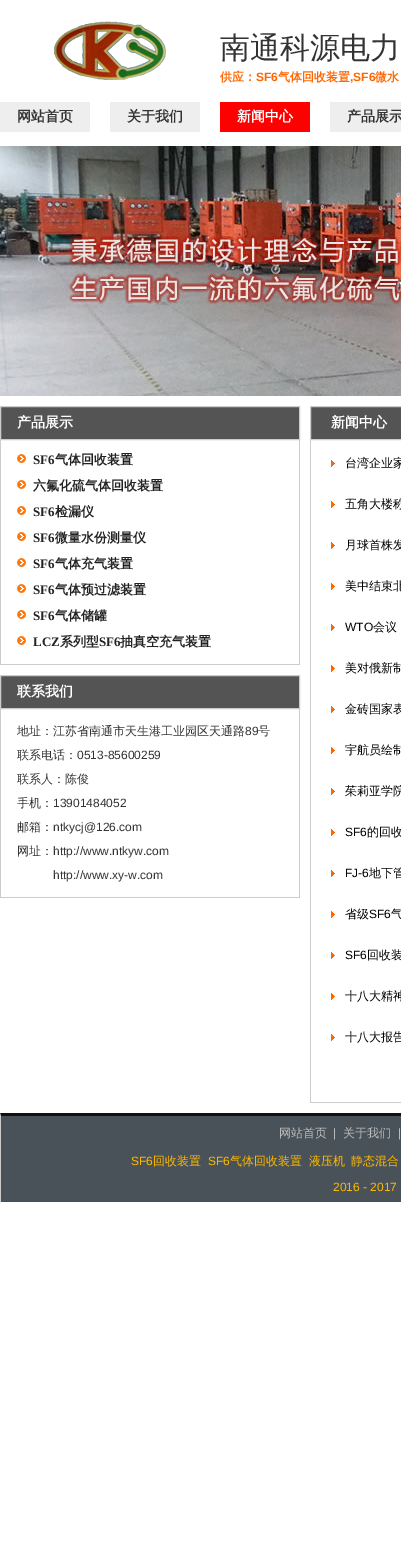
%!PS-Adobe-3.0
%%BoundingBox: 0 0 401 1558
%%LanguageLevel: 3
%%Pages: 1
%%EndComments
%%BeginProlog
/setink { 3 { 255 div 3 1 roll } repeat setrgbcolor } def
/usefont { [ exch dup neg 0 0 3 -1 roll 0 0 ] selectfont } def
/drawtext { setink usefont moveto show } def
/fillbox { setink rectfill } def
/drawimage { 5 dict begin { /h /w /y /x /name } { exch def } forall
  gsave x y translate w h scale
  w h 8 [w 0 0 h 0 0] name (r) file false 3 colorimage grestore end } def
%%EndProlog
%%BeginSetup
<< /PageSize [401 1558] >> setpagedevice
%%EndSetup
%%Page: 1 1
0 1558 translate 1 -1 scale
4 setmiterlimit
0 0 401 1558 255 255 255 fillbox
(assets/img1.rgb) 54 21 112 59 drawimage
(南通科源电力) 220 58 /WenQuanYiZenHei-Medium 30 51 51 51 drawtext
(供应：) 220 81 /WenQuanYiZenHei-Bold 12 255 102 0 drawtext
(SF6) 256 81 /LiberationSans-Bold 12 255 102 0 drawtext
(气体回收装置) 278 81 /WenQuanYiZenHei-Bold 12 255 102 0 drawtext
(,SF6) 350 81 /LiberationSans-Bold 12 255 102 0 drawtext
(微水) 375 81 /WenQuanYiZenHei-Bold 12 255 102 0 drawtext
0 102 90 30 238 238 238 fillbox
(网站首页) 17 121 /WenQuanYiZenHei-Bold 14 51 51 51 drawtext
110 102 90 30 238 238 238 fillbox
(关于我们) 127 121 /WenQuanYiZenHei-Bold 14 51 51 51 drawtext
220 102 90 30 255 0 0 fillbox
(新闻中心) 237 121 /WenQuanYiZenHei-Bold 14 255 255 255 drawtext
330 102 71 30 238 238 238 fillbox
(产品展示) 347 121 /WenQuanYiZenHei-Bold 14 51 51 51 drawtext
(assets/img2.rgb) 0 146 401 250 drawimage
84 84 84 setink
0.5 406.5 moveto 299.5 406.5 lineto 299.5 439.5 lineto 0.5 439.5 lineto closepath gsave fill grestore
204 204 204 setink
stroke
(产品展示) 17 427 /WenQuanYiZenHei-Bold 14 255 255 255 drawtext
299 440 1 225 204 204 204 fillbox
0 664 300 1 204 204 204 fillbox
0 440 1 225 204 204 204 fillbox
(assets/img3.rgb) 17 454 9 9 drawimage
(SF6) 33 464 /LiberationSerif-Bold 13 34 34 34 drawtext
(气体回收装置) 55 464 /WenQuanYiZenHei-Bold 13 34 34 34 drawtext
(assets/img3.rgb) 17 480 9 9 drawimage
(六氟化硫气体回收装置) 33 490 /WenQuanYiZenHei-Bold 13 34 34 34 drawtext
(assets/img3.rgb) 17 506 9 9 drawimage
(SF6) 33 516 /LiberationSerif-Bold 13 34 34 34 drawtext
(检漏仪) 55 516 /WenQuanYiZenHei-Bold 13 34 34 34 drawtext
(assets/img3.rgb) 17 532 9 9 drawimage
(SF6) 33 542 /LiberationSerif-Bold 13 34 34 34 drawtext
(微量水份测量仪) 55 542 /WenQuanYiZenHei-Bold 13 34 34 34 drawtext
(assets/img3.rgb) 17 558 9 9 drawimage
(SF6) 33 568 /LiberationSerif-Bold 13 34 34 34 drawtext
(气体充气装置) 55 568 /WenQuanYiZenHei-Bold 13 34 34 34 drawtext
(assets/img3.rgb) 17 584 9 9 drawimage
(SF6) 33 594 /LiberationSerif-Bold 13 34 34 34 drawtext
(气体预过滤装置) 55 594 /WenQuanYiZenHei-Bold 13 34 34 34 drawtext
(assets/img3.rgb) 17 610 9 9 drawimage
(SF6) 33 620 /LiberationSerif-Bold 13 34 34 34 drawtext
(气体储罐) 55 620 /WenQuanYiZenHei-Bold 13 34 34 34 drawtext
(assets/img3.rgb) 17 636 9 9 drawimage
(LCZ) 33 646 /LiberationSerif-Bold 13 34 34 34 drawtext
(系列型) 60 646 /WenQuanYiZenHei-Bold 13 34 34 34 drawtext
(SF6) 99 646 /LiberationSerif-Bold 13 34 34 34 drawtext
(抽真空充气装置) 120 646 /WenQuanYiZenHei-Bold 13 34 34 34 drawtext
84 84 84 setink
0.5 675.5 moveto 299.5 675.5 lineto 299.5 708.5 lineto 0.5 708.5 lineto closepath gsave fill grestore
204 204 204 setink
stroke
(联系我们) 17 696 /WenQuanYiZenHei-Bold 14 255 255 255 drawtext
299 709 1 189 204 204 204 fillbox
0 897 300 1 204 204 204 fillbox
0 709 1 189 204 204 204 fillbox
(地址：江苏省南通市天生港工业园区天通路) 17 735 /WenQuanYiZenHei-Medium 12 51 51 51 drawtext
(89) 245 735 /LiberationSans-Regular 12 51 51 51 drawtext
(号) 258 735 /WenQuanYiZenHei-Medium 12 51 51 51 drawtext
(联系电话：) 17 759 /WenQuanYiZenHei-Medium 12 51 51 51 drawtext
(0513-85600259) 77 759 /LiberationSans-Regular 12 51 51 51 drawtext
(联系人：陈俊) 17 783 /WenQuanYiZenHei-Medium 12 51 51 51 drawtext
(手机：) 17 807 /WenQuanYiZenHei-Medium 12 51 51 51 drawtext
(13901484052) 53 807 /LiberationSans-Regular 12 51 51 51 drawtext
(邮箱：) 17 831 /WenQuanYiZenHei-Medium 12 51 51 51 drawtext
(ntkycj@126.com) 53 831 /LiberationSans-Regular 12 51 51 51 drawtext
(网址：) 17 855 /WenQuanYiZenHei-Medium 12 51 51 51 drawtext
(http://www.ntkyw.com) 53 855 /LiberationSans-Regular 12 51 51 51 drawtext
(http://www.xy-w.com) 53 879 /LiberationSans-Regular 12 51 51 51 drawtext
84 84 84 setink
310.5 406.5 moveto 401.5 406.5 lineto 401.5 439.5 lineto 310.5 439.5 lineto closepath gsave fill grestore
204 204 204 setink
stroke
(新闻中心) 331 427 /WenQuanYiZenHei-Bold 14 255 255 255 drawtext
310 1102 91 1 204 204 204 fillbox
310 440 1 663 204 204 204 fillbox
(assets/img4.rgb) 331 460 4 7 drawimage
(台湾企业家) 345 467 /WenQuanYiZenHei-Medium 12 0 0 0 drawtext
(assets/img4.rgb) 331 501 4 7 drawimage
(五角大楼称) 345 508 /WenQuanYiZenHei-Medium 12 0 0 0 drawtext
(assets/img4.rgb) 331 542 4 7 drawimage
(月球首株发) 345 549 /WenQuanYiZenHei-Medium 12 0 0 0 drawtext
(assets/img4.rgb) 331 583 4 7 drawimage
(美中结束北) 345 590 /WenQuanYiZenHei-Medium 12 0 0 0 drawtext
(assets/img4.rgb) 331 624 4 7 drawimage
(WTO) 345 631 /LiberationSans-Regular 12 0 0 0 drawtext
(会议) 373 631 /WenQuanYiZenHei-Medium 12 0 0 0 drawtext
(assets/img4.rgb) 331 665 4 7 drawimage
(美对俄新制) 345 672 /WenQuanYiZenHei-Medium 12 0 0 0 drawtext
(assets/img4.rgb) 331 706 4 7 drawimage
(金砖国家表) 345 713 /WenQuanYiZenHei-Medium 12 0 0 0 drawtext
(assets/img4.rgb) 331 747 4 7 drawimage
(宇航员绘制) 345 754 /WenQuanYiZenHei-Medium 12 0 0 0 drawtext
(assets/img4.rgb) 331 788 4 7 drawimage
(茱莉亚学院) 345 795 /WenQuanYiZenHei-Medium 12 0 0 0 drawtext
(assets/img4.rgb) 331 829 4 7 drawimage
(SF6) 345 836 /LiberationSans-Regular 12 0 0 0 drawtext
(的回收) 367 836 /WenQuanYiZenHei-Medium 12 0 0 0 drawtext
(assets/img4.rgb) 331 870 4 7 drawimage
(FJ-6) 345 877 /LiberationSans-Regular 12 0 0 0 drawtext
(地下管) 369 877 /WenQuanYiZenHei-Medium 12 0 0 0 drawtext
(assets/img4.rgb) 331 911 4 7 drawimage
(省级) 345 918 /WenQuanYiZenHei-Medium 12 0 0 0 drawtext
(SF6) 369 918 /LiberationSans-Regular 12 0 0 0 drawtext
(气) 391 918 /WenQuanYiZenHei-Medium 12 0 0 0 drawtext
(assets/img4.rgb) 331 952 4 7 drawimage
(SF6) 345 959 /LiberationSans-Regular 12 0 0 0 drawtext
(回收装) 367 959 /WenQuanYiZenHei-Medium 12 0 0 0 drawtext
(assets/img4.rgb) 331 993 4 7 drawimage
(十八大精神) 345 1000 /WenQuanYiZenHei-Medium 12 0 0 0 drawtext
(assets/img4.rgb) 331 1034 4 7 drawimage
(十八大报告) 345 1041 /WenQuanYiZenHei-Medium 12 0 0 0 drawtext
0 1113 401 89 73 82 89 fillbox
17 17 17 setink
0 1113 moveto 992 1113 lineto 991 1116 lineto 1 1116 lineto closepath fill
204 204 204 setink
0 1202 moveto 0 1113 lineto 1 1116 lineto 1 1202 lineto closepath fill
(网站首页) 279 1137 /WenQuanYiZenHei-Medium 12 188 188 188 drawtext
(|) 333 1137 /LiberationSans-Regular 12 188 188 188 drawtext
(关于我们) 343 1137 /WenQuanYiZenHei-Medium 12 188 188 188 drawtext
(|) 398 1137 /LiberationSans-Regular 12 188 188 188 drawtext
(SF6) 131 1165 /LiberationSans-Regular 12 254 184 1 drawtext
(回收装置) 153 1165 /WenQuanYiZenHei-Medium 12 254 184 1 drawtext
(SF6) 208 1165 /LiberationSans-Regular 12 254 184 1 drawtext
(气体回收装置) 230 1165 /WenQuanYiZenHei-Medium 12 254 184 1 drawtext
(液压机) 309 1165 /WenQuanYiZenHei-Medium 12 254 184 1 drawtext
(静态混合) 351 1165 /WenQuanYiZenHei-Medium 12 254 184 1 drawtext
(2016 - 2017) 333 1191 /LiberationSans-Regular 12 254 184 1 drawtext
showpage
%%EOF
